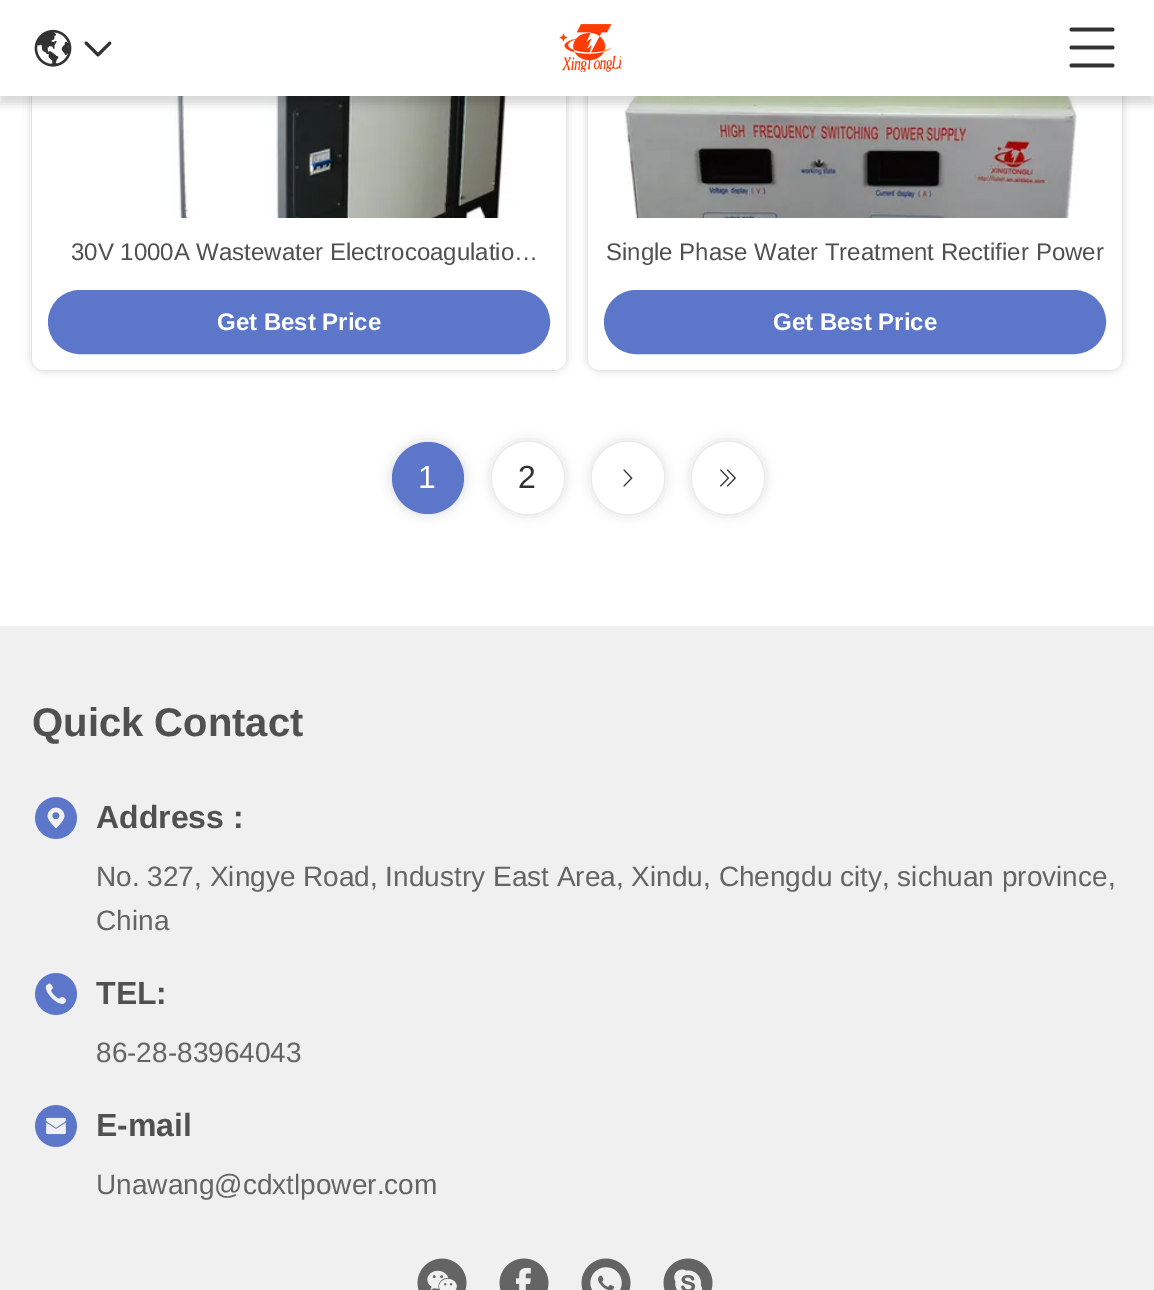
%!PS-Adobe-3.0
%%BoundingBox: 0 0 1154 1290
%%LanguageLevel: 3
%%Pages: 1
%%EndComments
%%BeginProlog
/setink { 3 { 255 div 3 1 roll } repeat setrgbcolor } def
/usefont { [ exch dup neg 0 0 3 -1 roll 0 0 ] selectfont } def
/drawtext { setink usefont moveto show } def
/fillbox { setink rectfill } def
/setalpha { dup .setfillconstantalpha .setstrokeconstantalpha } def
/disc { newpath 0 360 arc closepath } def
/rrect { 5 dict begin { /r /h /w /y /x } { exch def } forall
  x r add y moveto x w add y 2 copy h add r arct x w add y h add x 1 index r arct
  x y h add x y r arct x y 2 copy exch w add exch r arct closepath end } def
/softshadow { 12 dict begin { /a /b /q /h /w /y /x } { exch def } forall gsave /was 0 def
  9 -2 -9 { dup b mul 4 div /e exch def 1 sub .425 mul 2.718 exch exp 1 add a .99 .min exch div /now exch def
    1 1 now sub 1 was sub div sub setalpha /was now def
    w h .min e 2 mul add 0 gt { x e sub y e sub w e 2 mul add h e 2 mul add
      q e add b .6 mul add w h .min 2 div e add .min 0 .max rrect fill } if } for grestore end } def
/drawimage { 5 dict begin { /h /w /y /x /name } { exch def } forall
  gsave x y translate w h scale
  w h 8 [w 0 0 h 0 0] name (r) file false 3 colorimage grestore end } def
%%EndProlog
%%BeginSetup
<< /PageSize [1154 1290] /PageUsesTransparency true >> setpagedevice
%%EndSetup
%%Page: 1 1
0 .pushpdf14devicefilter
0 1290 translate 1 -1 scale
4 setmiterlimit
0 0 1154 1290 255 255 255 fillbox
0 0 0 setink
32 -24 534 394 12 4 0.2 softshadow
255 255 255 setink
32 -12 534 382 12 rrect fill
(assets/img5.rgb) 84 96 430 122 drawimage
0 0 0 setink
588 -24 534 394 12 4 0.2 softshadow
255 255 255 setink
588 -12 534 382 12 rrect fill
(assets/img6.rgb) 624 96 454 122 drawimage
0 0 0 setink
0 8 1154 96 0 4 0.15 softshadow
0 0 1154 96 255 255 255 fillbox
(assets/img1.rgb) 34 29 38 38 drawimage
(assets/img2.rgb) 84 41 28 16 drawimage
(assets/img3.rgb) 559 24 62 48 drawimage
(assets/img4.rgb) 1069 27 46 41 drawimage
(30V 1000A Wastewater Electrocoagulatio…) 71 260 /LiberationSans-Regular 24 80 80 80 drawtext
92 119 201 setink
50 292 498 60 30 rrect gsave fill grestore
4 setlinewidth
stroke
(Get Best Price) 217 330 /LiberationSans-Bold 24 255 255 255 drawtext
(Single Phase Water Treatment Rectifier Power) 606 260 /LiberationSans-Regular 24 80 80 80 drawtext
92 119 201 setink
606 292 498 60 30 rrect gsave fill grestore
stroke
(Get Best Price) 773 330 /LiberationSans-Bold 24 255 255 255 drawtext
0 0 0 setink
392 442 72 72 36 6 0.15 softshadow
92 119 201 setink
428 478 36 disc fill
(1) 418 488 /LiberationSans-Regular 32 255 255 255 drawtext
0 0 0 setink
492 442 72 72 36 6 0.15 softshadow
255 255 255 setink
528 478 36 disc fill
(2) 518 488 /LiberationSans-Regular 32 50 50 50 drawtext
0 0 0 setink
592 442 72 72 36 6 0.15 softshadow
255 255 255 setink
628 478 36 disc fill
(assets/img7.rgb) 623 469 10 18 drawimage
0 0 0 setink
692 442 72 72 36 6 0.15 softshadow
255 255 255 setink
728 478 36 disc fill
(assets/img8.rgb) 720 469 16 18 drawimage
0 626 1154 664 240 240 240 fillbox
(Quick Contact) 32 736 /LiberationSans-Bold 40 80 80 80 drawtext
(assets/img9.rgb) 35 797 42 42 drawimage
(Address :) 96 828 /LiberationSans-Bold 32 80 80 80 drawtext
(No. 327, Xingye Road, Industry East Area, Xindu, Chengdu city, sichuan province,) 96 886 /LiberationSans-Regular 28 100 100 100 drawtext
(China) 96 930 /LiberationSans-Regular 28 100 100 100 drawtext
(assets/img10.rgb) 35 973 42 42 drawimage
(TEL:) 96 1004 /LiberationSans-Bold 32 80 80 80 drawtext
(86-28-83964043) 96 1062 /LiberationSans-Regular 28 100 100 100 drawtext
(assets/img11.rgb) 35 1105 42 42 drawimage
(E-mail) 96 1136 /LiberationSans-Bold 32 80 80 80 drawtext
(Unawang@cdxtlpower.com) 96 1194 /LiberationSans-Regular 28 100 100 100 drawtext
(assets/img12.rgb) 417 1258 50 32 drawimage
(assets/img13.rgb) 499 1258 50 32 drawimage
(assets/img14.rgb) 581 1258 50 32 drawimage
(assets/img15.rgb) 663 1258 50 32 drawimage
.poppdf14devicefilter showpage
%%EOF
